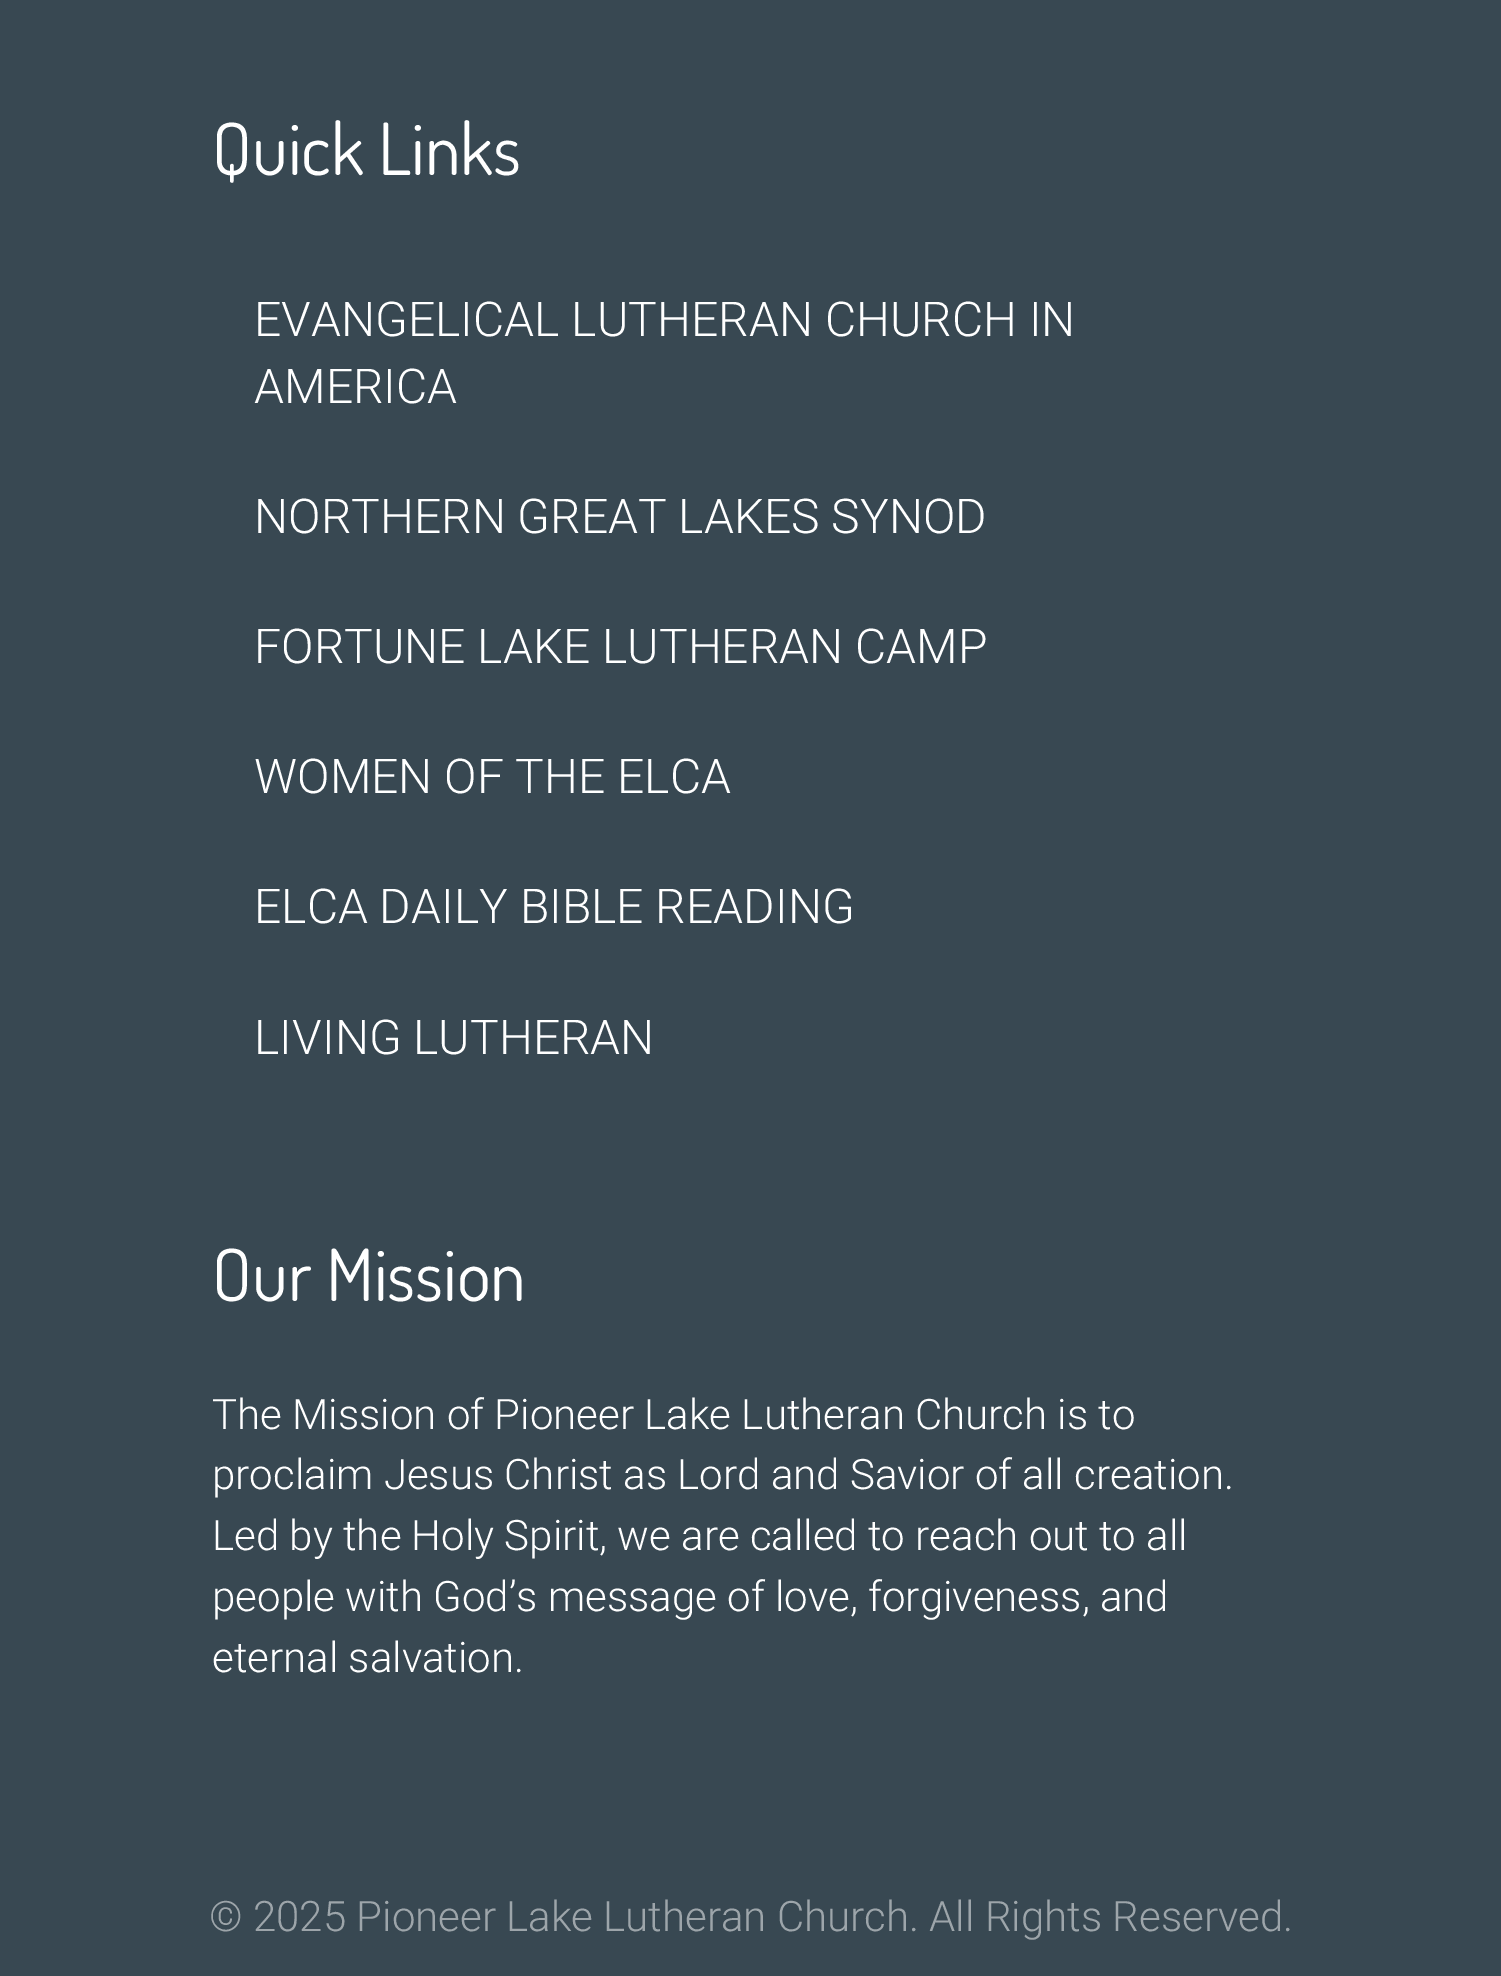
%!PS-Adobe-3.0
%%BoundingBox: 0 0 1501 1976
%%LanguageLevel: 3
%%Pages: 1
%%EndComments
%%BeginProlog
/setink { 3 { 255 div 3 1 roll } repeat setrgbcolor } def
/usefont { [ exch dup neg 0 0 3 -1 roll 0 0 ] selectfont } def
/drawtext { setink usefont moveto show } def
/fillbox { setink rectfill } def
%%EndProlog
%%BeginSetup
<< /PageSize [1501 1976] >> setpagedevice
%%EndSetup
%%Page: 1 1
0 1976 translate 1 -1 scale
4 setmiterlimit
0 0 1501 1976 56 72 82 fillbox
(Quick Links) 212 175 /Dosis-Regular 72 255 255 255 drawtext
(EVANGELICAL LUTHERAN CHURCH IN) 254 336 /Roboto-Light 48 255 255 255 drawtext
(AMERICA) 254 403 /Roboto-Light 48 255 255 255 drawtext
(NORTHERN GREAT LAKES SYNOD) 254 533 /Roboto-Light 48 255 255 255 drawtext
(FORTUNE LAKE LUTHERAN CAMP) 254 663 /Roboto-Light 48 255 255 255 drawtext
(WOMEN OF THE ELCA) 254 793 /Roboto-Light 48 255 255 255 drawtext
(ELCA DAILY BIBLE READING) 254 923 /Roboto-Light 48 255 255 255 drawtext
(LIVING LUTHERAN) 254 1054 /Roboto-Light 48 255 255 255 drawtext
(Our Mission) 212 1301 /Dosis-Regular 72 255 255 255 drawtext
(The Mission of Pioneer Lake Lutheran Church is to) 212 1429 /Roboto-Light 42 255 255 255 drawtext
(proclaim Jesus Christ as Lord and Savior of all creation.) 212 1489 /Roboto-Light 42 255 255 255 drawtext
(Led by the Holy Spirit, we are called to reach out to all) 212 1550 /Roboto-Light 42 255 255 255 drawtext
(people with God’s message of love, forgiveness, and) 212 1611 /Roboto-Light 42 255 255 255 drawtext
(eternal salvation.) 212 1672 /Roboto-Light 42 255 255 255 drawtext
(© 2025 Pioneer Lake Lutheran Church. All Rights Reserved.) 209 1931 /Roboto-Light 42 157 165 170 drawtext
showpage
%%EOF
